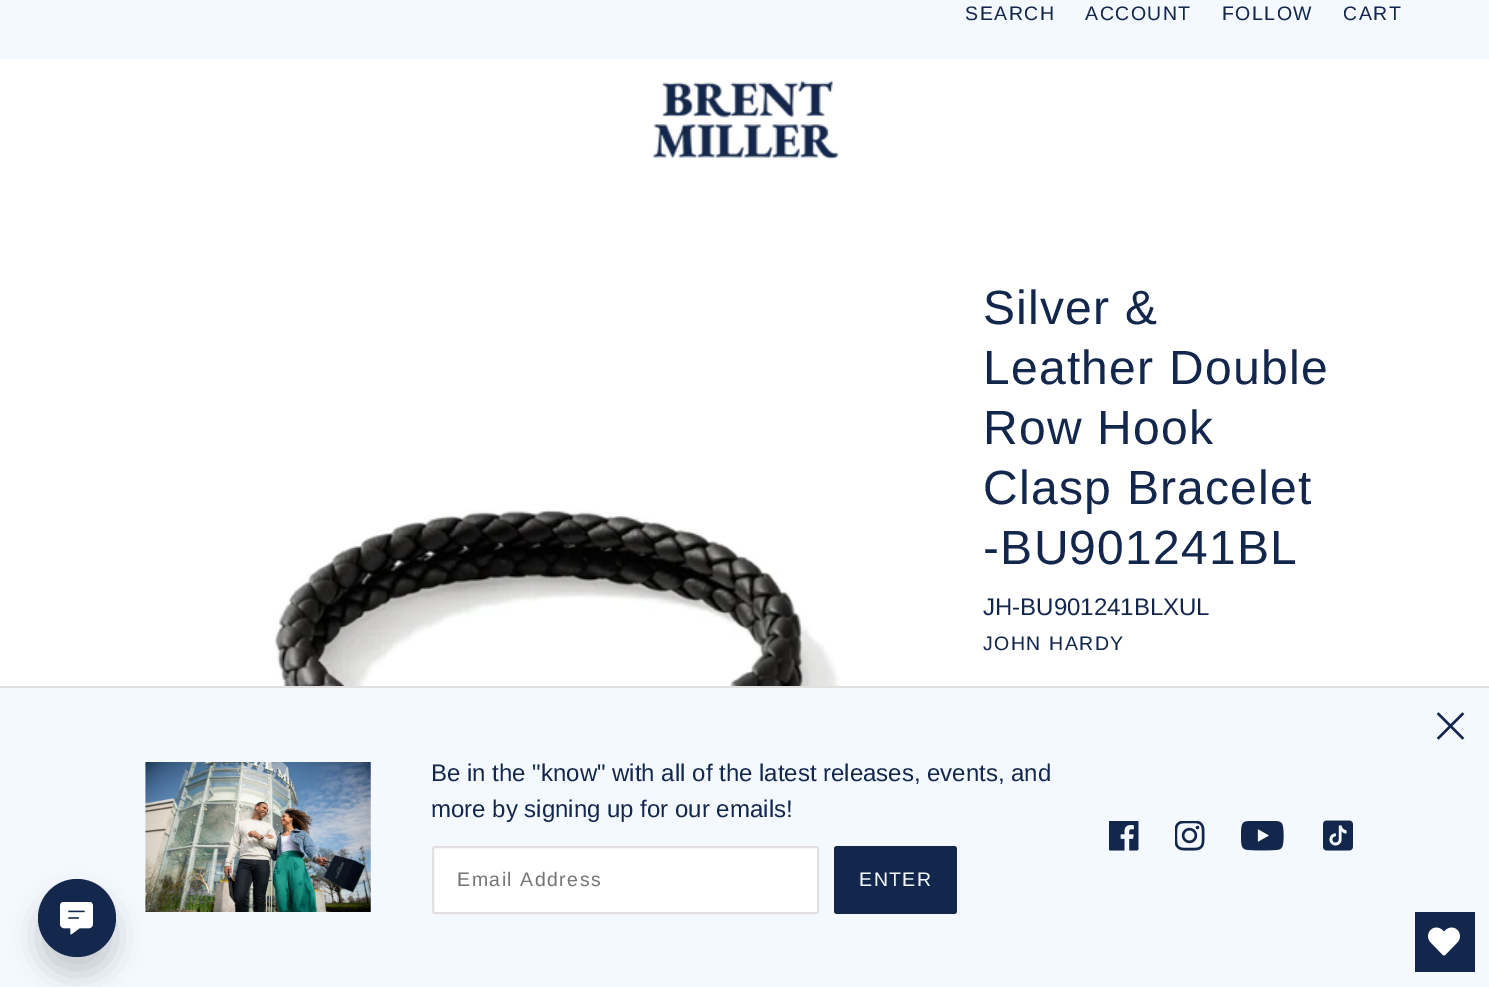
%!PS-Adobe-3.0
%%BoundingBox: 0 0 1489 987
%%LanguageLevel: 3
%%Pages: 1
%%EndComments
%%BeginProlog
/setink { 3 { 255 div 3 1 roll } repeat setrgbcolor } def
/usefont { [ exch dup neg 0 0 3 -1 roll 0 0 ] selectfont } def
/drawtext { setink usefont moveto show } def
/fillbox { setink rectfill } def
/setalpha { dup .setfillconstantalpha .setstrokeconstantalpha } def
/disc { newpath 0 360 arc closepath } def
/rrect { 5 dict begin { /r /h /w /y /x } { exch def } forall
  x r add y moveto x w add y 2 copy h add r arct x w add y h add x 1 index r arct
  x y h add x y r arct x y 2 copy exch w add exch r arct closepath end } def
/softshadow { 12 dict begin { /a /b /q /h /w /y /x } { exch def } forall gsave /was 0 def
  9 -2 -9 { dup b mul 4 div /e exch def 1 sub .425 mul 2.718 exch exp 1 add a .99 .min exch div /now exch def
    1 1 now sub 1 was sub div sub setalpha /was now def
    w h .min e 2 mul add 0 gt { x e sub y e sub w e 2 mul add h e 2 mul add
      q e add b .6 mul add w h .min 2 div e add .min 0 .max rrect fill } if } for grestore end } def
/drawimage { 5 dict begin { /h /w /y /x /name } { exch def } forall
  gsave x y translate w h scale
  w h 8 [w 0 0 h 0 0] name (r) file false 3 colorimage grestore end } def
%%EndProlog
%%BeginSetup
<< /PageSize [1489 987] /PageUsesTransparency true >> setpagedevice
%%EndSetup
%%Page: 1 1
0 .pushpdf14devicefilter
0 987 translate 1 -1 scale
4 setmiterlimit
0 0 1489 987 255 255 255 fillbox
0 0 1489 59 244 248 255 fillbox
/LiberationSans-Regular 19.5 usefont
19 38 75 setink
965 20 moveto 1.5 0 (SEARCH) ashow
1085 20 moveto 1.5 0 (ACCOUNT) ashow
1222 20 moveto 1.5 0 (FOLLOW) ashow
1343 20 moveto 1.5 0 (CART) ashow
(assets/img1.rgb) 652 80 187 80 drawimage
(assets/img2.rgb) 274 510 568 176 drawimage
/LiberationSans-Regular 48 usefont
983 324 moveto 1.25 0 (Silver &) ashow
983 384 moveto 1.25 0 (Leather Double) ashow
983 444 moveto 1.25 0 (Row Hook) ashow
983 504 moveto 1.25 0 (Clasp Bracelet) ashow
983 564 moveto 1.25 0 (-BU901241BL) ashow
(JH-BU901241BLXUL) 983 615 /LiberationSans-Regular 24 19 38 75 drawtext
/LiberationSans-Regular 19.5 usefont
983 650 moveto 1.5 0 (JOHN HARDY) ashow
0 688 1489 299 244 248 255 fillbox
0 686 1489 2 224 224 224 fillbox
(assets/img3.rgb) 1436 712 29 28 drawimage
(assets/img4.rgb) 145 762 226 150 drawimage
(Be in the "know" with all of the latest releases, events, and) 431 781 /LiberationSans-Regular 24 19 38 75 drawtext
(more by signing up for our emails!) 431 817 /LiberationSans-Regular 24 19 38 75 drawtext
255 255 255 setink
433 847 385 66 2 rrect gsave fill grestore
224 224 224 setink
2 setlinewidth
stroke
/LiberationSans-Regular 19.5 usefont
117 117 117 setink
457 886 moveto 1.5 0 (Email Address) ashow
19 38 75 setink
834 846 123 68 3 rrect fill
244 248 255 setink
859 886 moveto 1.5 0 (ENTER) ashow
(assets/img5.rgb) 1109 821 30 30 drawimage
(assets/img6.rgb) 1175 821 30 30 drawimage
(assets/img7.rgb) 1241 821 43 30 drawimage
(assets/img8.rgb) 1323 820 30 31 drawimage
0 0 0 setink
38 897 78 78 39 14 0.18 softshadow
20 39 76 setink
77 918 39 disc fill
(assets/img9.rgb) 60 902 33 33 drawimage
1415 912 60 60 19 38 75 fillbox
(assets/img10.rgb) 1428 927 32 29 drawimage
.poppdf14devicefilter showpage
%%EOF
